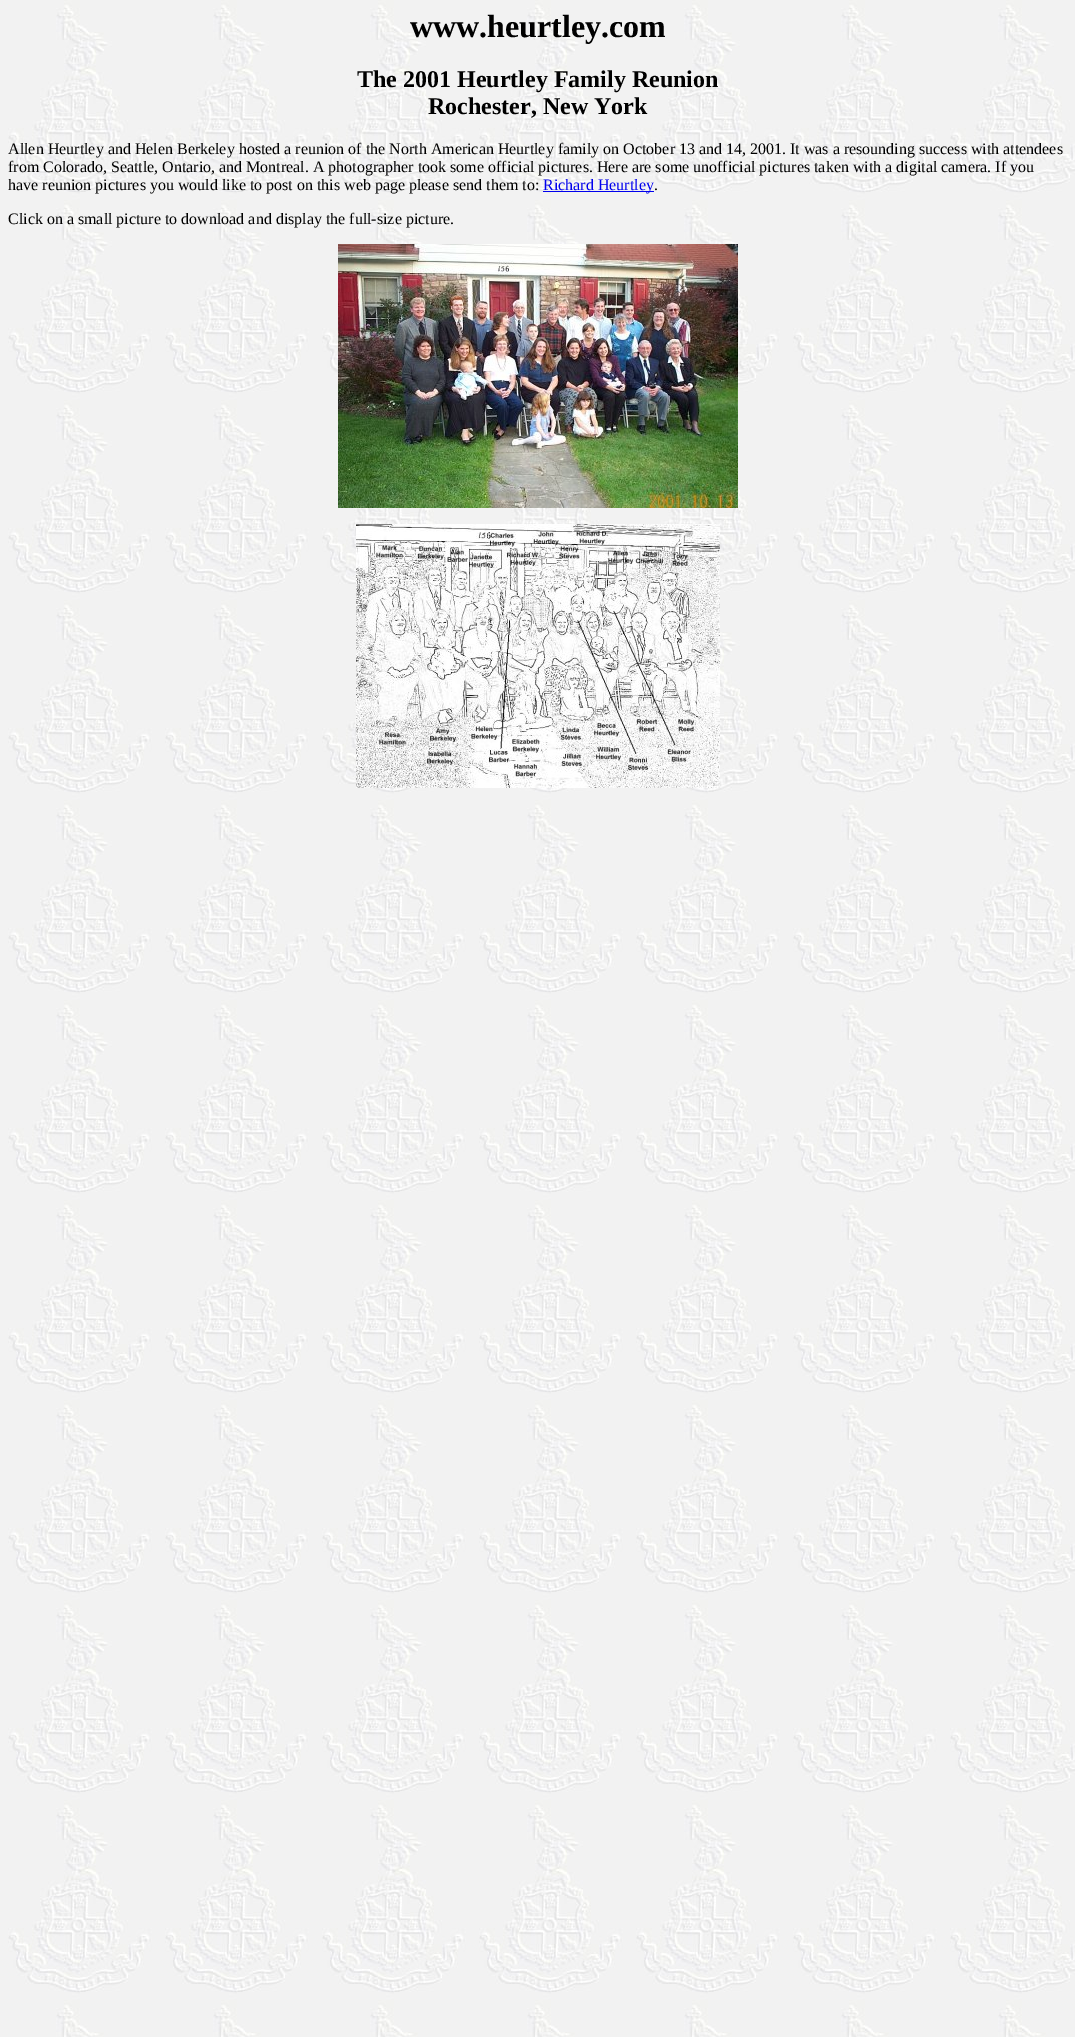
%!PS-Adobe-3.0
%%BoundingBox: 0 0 1075 2037
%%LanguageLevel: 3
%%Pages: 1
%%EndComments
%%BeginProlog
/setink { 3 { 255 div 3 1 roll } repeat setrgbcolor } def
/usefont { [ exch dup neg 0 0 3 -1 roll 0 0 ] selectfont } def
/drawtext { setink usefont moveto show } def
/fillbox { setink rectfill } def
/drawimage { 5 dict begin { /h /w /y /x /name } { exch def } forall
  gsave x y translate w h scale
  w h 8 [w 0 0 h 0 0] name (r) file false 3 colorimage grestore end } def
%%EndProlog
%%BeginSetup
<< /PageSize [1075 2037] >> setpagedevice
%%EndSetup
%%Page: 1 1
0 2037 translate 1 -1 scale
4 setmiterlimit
0 0 1075 2037 255 255 255 fillbox
(assets/img1.rgb) 0 0 1075 2037 drawimage
(www.heurtley.com) 410 37 /LiberationSerif-Bold 32 0 0 0 drawtext
(The 2001 Heurtley Family Reunion) 357 87 /LiberationSerif-Bold 24 0 0 0 drawtext
(Rochester, New York) 428 114 /LiberationSerif-Bold 24 0 0 0 drawtext
(Allen Heurtley and Helen Berkeley hosted a reunion of the North American Heurtley family on October 13 and 14, 2001. It was a resounding success with attendees) 8 154 /LiberationSerif-Regular 16 0 0 0 drawtext
(from Colorado, Seattle, Ontario, and Montreal. A photographer took some official pictures. Here are some unofficial pictures taken with a digital camera. If you) 8 172 /LiberationSerif-Regular 16 0 0 0 drawtext
(have reunion pictures you would like to post on this web page please send them to:) 8 190 /LiberationSerif-Regular 16 0 0 0 drawtext
543 191 111 1 0 0 238 fillbox
(Richard Heurtley) 543 190 /LiberationSerif-Regular 16 0 0 238 drawtext
(.) 654 190 /LiberationSerif-Regular 16 0 0 0 drawtext
(Click on a small picture to download and display the full-size picture.) 8 224 /LiberationSerif-Regular 16 0 0 0 drawtext
(assets/img2.rgb) 338 244 400 264 drawimage
(assets/img3.rgb) 356 524 364 264 drawimage
showpage
%%EOF
